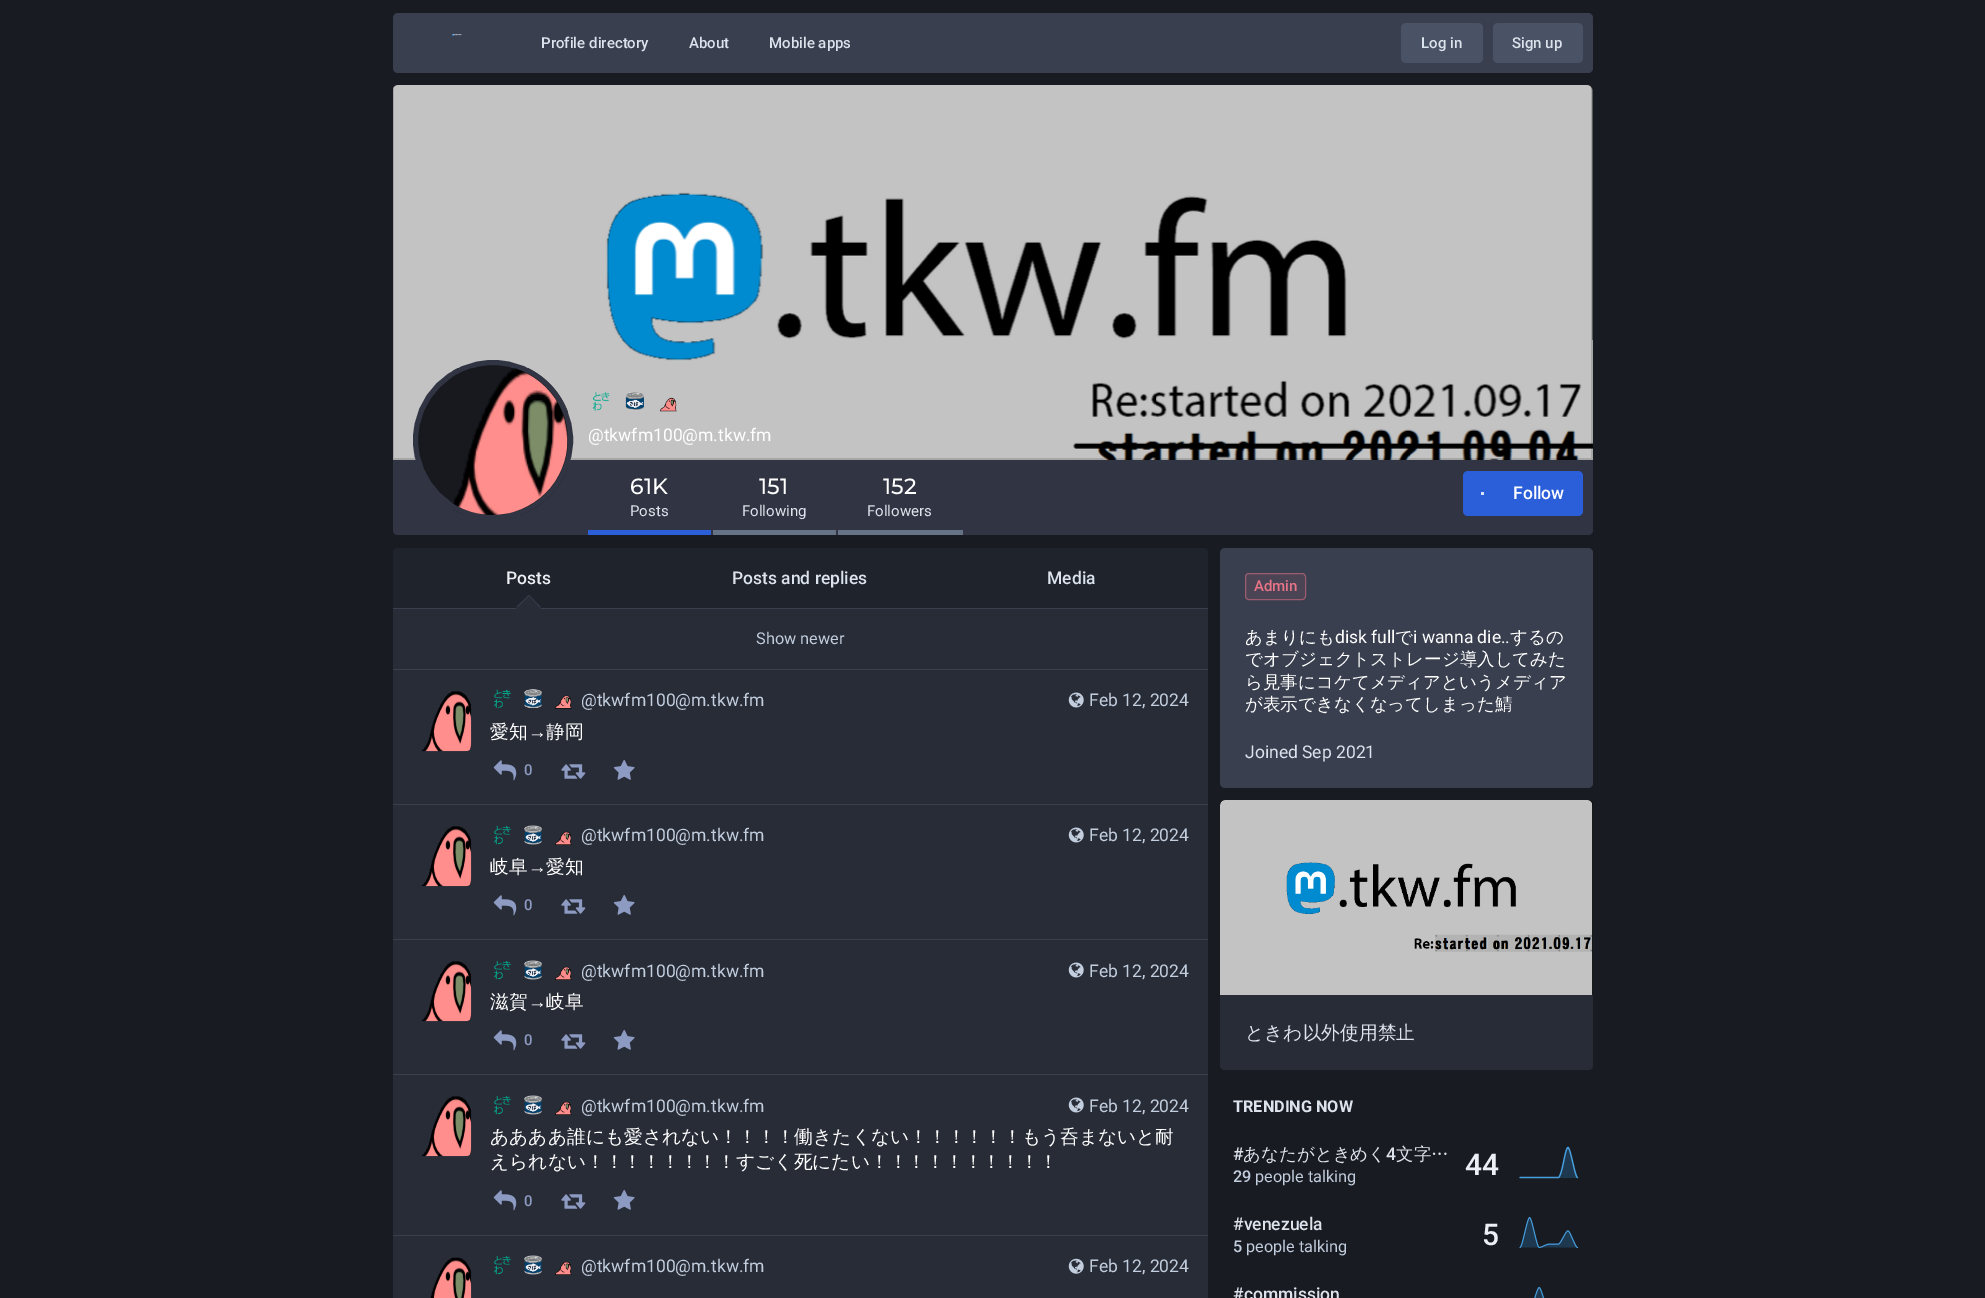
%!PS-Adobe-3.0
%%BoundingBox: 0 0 1985 1298
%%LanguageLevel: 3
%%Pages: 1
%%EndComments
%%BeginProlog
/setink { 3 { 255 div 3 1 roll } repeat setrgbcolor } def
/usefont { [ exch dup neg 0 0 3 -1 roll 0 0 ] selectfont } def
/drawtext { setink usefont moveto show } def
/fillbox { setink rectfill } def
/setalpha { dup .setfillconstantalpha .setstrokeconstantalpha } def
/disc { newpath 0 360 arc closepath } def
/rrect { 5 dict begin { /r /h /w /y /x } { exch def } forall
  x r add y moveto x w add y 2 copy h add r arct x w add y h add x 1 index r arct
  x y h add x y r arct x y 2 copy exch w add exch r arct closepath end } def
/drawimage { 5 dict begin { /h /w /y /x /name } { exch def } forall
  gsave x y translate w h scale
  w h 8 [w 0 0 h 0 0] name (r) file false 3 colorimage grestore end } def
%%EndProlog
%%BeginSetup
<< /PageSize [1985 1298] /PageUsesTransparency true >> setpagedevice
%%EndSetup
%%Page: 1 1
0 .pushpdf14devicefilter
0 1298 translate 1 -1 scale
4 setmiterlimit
0 0 1985 1298 25 27 34 fillbox
57 63 79 setink
393 13 1200 60 5 rrect fill
(assets/img1.rgb) 452 34 10 2 drawimage
(Profile directory) 541 48 /Roboto-Medium 15 221 227 236 drawtext
(About) 689 48 /Roboto-Medium 15 221 227 236 drawtext
(Mobile apps) 769 48 /Roboto-Medium 15 221 227 236 drawtext
74 82 102 setink
1401 23 82 40 5 rrect fill
(Log in) 1421 48 /Roboto-Medium 15 221 227 236 drawtext
74 82 102 setink
1493 23 90 40 5 rrect fill
(Sign up) 1512 48 /Roboto-Medium 15 221 227 236 drawtext
14 16 20 setink
398 85 moveto 1588 85 lineto 1591 85 1593 87 1593 90 curveto 1593 460 lineto 393 460 lineto 393 90 lineto 393 87 395 85 398 85 curveto closepath fill
(assets/img2.rgb) 393 85 1200 375 drawimage
0.15 setalpha
0 0 0 setink
1591 86 moveto 1591 458 lineto 394 458 lineto 394 87 lineto 393 90 lineto 393 460 lineto 1593 460 lineto 1593 90 lineto 1593 88 1592 87 1591 86 curveto closepath fill
1 setalpha
49 53 67 setink
393 460 moveto 1593 460 lineto 1593 530 lineto 1593 533 1591 535 1588 535 curveto 398 535 lineto 395 535 393 533 393 530 curveto closepath fill
23 25 31 setink
493 440 77.5 disc gsave fill grestore
49 53 67 setink
5 setlinewidth
stroke
(assets/img3.rgb) 452 368 116 147 drawimage
(assets/img4.rgb) 592 392 18 19 drawimage
(assets/img5.rgb) 625 392 19 19 drawimage
(assets/img6.rgb) 660 397 17 15 drawimage
(@tkwfm100@m.tkw.fm) 588 441 /Roboto-Regular 17.5 255 255 255 drawtext
(61K) 630 494 /Montserrat-Medium 22 255 255 255 drawtext
(Posts) 630 516 /Roboto-Regular 15 221 227 236 drawtext
588 530 123 5 43 95 217 fillbox
(151) 759 494 /Montserrat-Medium 22 255 255 255 drawtext
(Following) 742 516 /Roboto-Regular 15 221 227 236 drawtext
713 530 123 5 102 114 134 fillbox
(152) 883 494 /Montserrat-Medium 22 255 255 255 drawtext
(Followers) 867 516 /Roboto-Regular 15 221 227 236 drawtext
838 530 125 5 102 114 134 fillbox
43 95 217 setink
1463 471 120 45 5 rrect fill
1481 492 3 3 217 226 248 fillbox
(Follow) 1513 499 /Roboto-Medium 17.5 255 255 255 drawtext
31 35 43 setink
398 548 moveto 1203 548 lineto 1206 548 1208 550 1208 553 curveto 1208 609 lineto 393 609 lineto 393 553 lineto 393 550 395 548 398 548 curveto closepath fill
393 608 815 1 57 63 79 fillbox
(Posts) 506 584 /Roboto-Medium 17.5 236 240 244 drawtext
57 63 79 setink
541 607.5 moveto 516 607.5 lineto 529 595 lineto closepath fill
40 44 55 setink
541 609 moveto 516 609 lineto 529 596 lineto closepath fill
(Posts and replies) 732 584 /Roboto-Medium 17.5 221 227 236 drawtext
(Media) 1047 584 /Roboto-Medium 17.5 221 227 236 drawtext
393 609 815 60 40 44 55 fillbox
393 669 815 1 57 63 79 fillbox
(Show newer) 756 644 /Roboto-Regular 16.25 194 206 222 drawtext
393 670 815 134 40 44 55 fillbox
393 804 815 1 57 63 79 fillbox
(assets/img7.rgb) 421 691 51 61 drawimage
(assets/img8.rgb) 494 689 17 19 drawimage
(assets/img9.rgb) 524 689 18 19 drawimage
(assets/img10.rgb) 555 695 17 14 drawimage
(@tkwfm100@m.tkw.fm) 581 706 /Roboto-Regular 17.5 194 206 222 drawtext
(assets/img11.rgb) 1068 692 16 16 drawimage
(Feb 12, 2024) 1089 706 /Roboto-Regular 17.5 194 206 222 drawtext
(愛知) 490 738 /WenQuanYiZenHei-Medium 18.75 255 255 255 drawtext
(→) 528 738 /LiberationSans-Regular 18.75 255 255 255 drawtext
(静岡) 546 738 /WenQuanYiZenHei-Medium 18.75 255 255 255 drawtext
(assets/img12.rgb) 493 760 24 21 drawimage
(0) 524 775 /Roboto-Medium 15 141 154 194 drawtext
(assets/img13.rgb) 561 764 25 15 drawimage
(assets/img14.rgb) 613 759 22 21 drawimage
393 805 815 134 40 44 55 fillbox
393 939 815 1 57 63 79 fillbox
(assets/img7.rgb) 421 826 51 61 drawimage
(assets/img15.rgb) 494 825 17 20 drawimage
(assets/img16.rgb) 524 825 18 20 drawimage
(assets/img17.rgb) 555 831 17 14 drawimage
(@tkwfm100@m.tkw.fm) 581 841 /Roboto-Regular 17.5 194 206 222 drawtext
(assets/img11.rgb) 1068 827 16 16 drawimage
(Feb 12, 2024) 1089 841 /Roboto-Regular 17.5 194 206 222 drawtext
(岐阜) 490 873 /WenQuanYiZenHei-Medium 18.75 255 255 255 drawtext
(→) 528 873 /LiberationSans-Regular 18.75 255 255 255 drawtext
(愛知) 546 873 /WenQuanYiZenHei-Medium 18.75 255 255 255 drawtext
(assets/img12.rgb) 493 895 24 21 drawimage
(0) 524 910 /Roboto-Medium 15 141 154 194 drawtext
(assets/img13.rgb) 561 899 25 15 drawimage
(assets/img14.rgb) 613 894 22 21 drawimage
393 940 815 134 40 44 55 fillbox
393 1074 815 1 57 63 79 fillbox
(assets/img7.rgb) 421 961 51 61 drawimage
(assets/img15.rgb) 494 960 17 20 drawimage
(assets/img16.rgb) 524 960 18 20 drawimage
(assets/img17.rgb) 555 966 17 14 drawimage
(@tkwfm100@m.tkw.fm) 581 977 /Roboto-Regular 17.5 194 206 222 drawtext
(assets/img11.rgb) 1068 962 16 16 drawimage
(Feb 12, 2024) 1089 977 /Roboto-Regular 17.5 194 206 222 drawtext
(滋賀) 490 1008 /WenQuanYiZenHei-Medium 18.75 255 255 255 drawtext
(→) 528 1008 /LiberationSans-Regular 18.75 255 255 255 drawtext
(岐阜) 546 1008 /WenQuanYiZenHei-Medium 18.75 255 255 255 drawtext
(assets/img12.rgb) 493 1030 24 21 drawimage
(0) 524 1045 /Roboto-Medium 15 141 154 194 drawtext
(assets/img13.rgb) 561 1034 25 15 drawimage
(assets/img14.rgb) 613 1029 22 21 drawimage
393 1075 815 160 40 44 55 fillbox
393 1235 815 1 57 63 79 fillbox
(assets/img7.rgb) 421 1096 51 61 drawimage
(assets/img15.rgb) 494 1095 17 20 drawimage
(assets/img16.rgb) 524 1095 18 20 drawimage
(assets/img17.rgb) 555 1101 17 14 drawimage
(@tkwfm100@m.tkw.fm) 581 1112 /Roboto-Regular 17.5 194 206 222 drawtext
(assets/img11.rgb) 1068 1097 16 16 drawimage
(Feb 12, 2024) 1089 1112 /Roboto-Regular 17.5 194 206 222 drawtext
(ああああ誰にも愛されない！！！！働きたくない！！！！！！もう呑まないと耐) 490 1143 /WenQuanYiZenHei-Medium 18.75 255 255 255 drawtext
(えられない！！！！！！！！すごく死にたい！！！！！！！！！！) 490 1168 /WenQuanYiZenHei-Medium 18.75 255 255 255 drawtext
(assets/img12.rgb) 493 1190 24 21 drawimage
(0) 524 1206 /Roboto-Medium 15 141 154 194 drawtext
(assets/img13.rgb) 561 1194 25 15 drawimage
(assets/img14.rgb) 613 1189 22 21 drawimage
393 1236 815 62 40 44 55 fillbox
(assets/img18.rgb) 430 1257 42 41 drawimage
(assets/img15.rgb) 494 1255 17 20 drawimage
(assets/img16.rgb) 524 1255 18 20 drawimage
(assets/img17.rgb) 555 1261 17 14 drawimage
(@tkwfm100@m.tkw.fm) 581 1272 /Roboto-Regular 17.5 194 206 222 drawtext
(assets/img19.rgb) 1068 1258 16 16 drawimage
(Feb 12, 2024) 1089 1272 /Roboto-Regular 17.5 194 206 222 drawtext
57 63 79 setink
1220 548 373 240 5 rrect fill
75 68 85 setink
1245 573 61 27 4 rrect fill
0.5 setalpha
232 116 135 setink
1 setlinewidth
1245.5 573.5 60 26 3.5 rrect stroke
1 setalpha
(Admin) 1254 591 /Roboto-Medium 15 232 116 135 drawtext
(あまりにも) 1245 643 /WenQuanYiZenHei-Medium 17.5 255 255 255 drawtext
(disk full) 1335 643 /Roboto-Regular 17.5 255 255 255 drawtext
(で) 1395 643 /WenQuanYiZenHei-Medium 17.5 255 255 255 drawtext
(i wanna die..) 1413 643 /Roboto-Regular 17.5 255 255 255 drawtext
(するの) 1510 643 /WenQuanYiZenHei-Medium 17.5 255 255 255 drawtext
(でオブジェクトストレージ導入してみた) 1245 665 /WenQuanYiZenHei-Medium 17.5 255 255 255 drawtext
(ら見事にコケてメディアというメディア) 1245 688 /WenQuanYiZenHei-Medium 17.5 255 255 255 drawtext
(が表示できなくなってしまった鯖) 1245 710 /WenQuanYiZenHei-Medium 17.5 255 255 255 drawtext
(Joined Sep 2021) 1245 758 /Roboto-Regular 17.5 221 227 236 drawtext
0 0 0 setink
1225 800 moveto 1588 800 lineto 1591 800 1593 802 1593 805 curveto 1593 995 lineto 1220 995 lineto 1220 805 lineto 1220 802 1222 800 1225 800 curveto closepath fill
(assets/img20.rgb) 1220 800 373 195 drawimage
40 44 55 setink
1220 995 moveto 1593 995 lineto 1593 1065 lineto 1593 1068 1591 1070 1588 1070 curveto 1225 1070 lineto 1222 1070 1220 1068 1220 1065 curveto closepath fill
(ときわ以外使用禁止) 1245 1039 /WenQuanYiZenHei-Medium 18.75 221 227 236 drawtext
(TRENDING NOW) 1233 1112 /Roboto-Bold 16.25 221 227 236 drawtext
(#) 1233 1160 /Roboto-Medium 17.5 221 227 236 drawtext
(あなたがときめく) 1243 1160 /WenQuanYiZenHei-Medium 17.5 221 227 236 drawtext
(4) 1386 1160 /Roboto-Medium 17.5 221 227 236 drawtext
(文字…) 1396 1160 /WenQuanYiZenHei-Medium 17.5 221 227 236 drawtext
(29) 1233 1182 /Roboto-Medium 16.25 194 206 222 drawtext
(people talking) 1255 1182 /Roboto-Regular 16.25 194 206 222 drawtext
(44) 1465 1175 /Roboto-Medium 30 236 240 244 drawtext
30 56 80 setink
1520 1178 moveto 1558 1178 lineto 1562 1175 1565 1148 1568 1148 curveto 1570 1148 1575 1178 1578 1178 curveto 1520 1178 lineto fill
69 158 222 setink
1.2 setlinewidth
1 setlinecap
1 setlinejoin
1520 1177.5 moveto 1558.5 1177.5 lineto 1562.5 1175 1565 1147.5 1568 1147.5 curveto 1570.5 1147.5 1575 1177.5 1577.5 1177.5 curveto stroke
(#venezuela) 1233 1230 /Roboto-Medium 17.5 221 227 236 drawtext
(5) 1233 1252 /Roboto-Medium 16.25 194 206 222 drawtext
(people talking) 1246 1252 /Roboto-Regular 16.25 194 206 222 drawtext
(5) 1482 1245 /Roboto-Medium 30 236 240 244 drawtext
(assets/img21.rgb) 1519 1217 60 32 drawimage
(#commission) 1233 1300 /Roboto-Medium 17.5 221 227 236 drawtext
(assets/img22.rgb) 1534 1287 11 11 drawimage
.poppdf14devicefilter showpage
%%EOF
